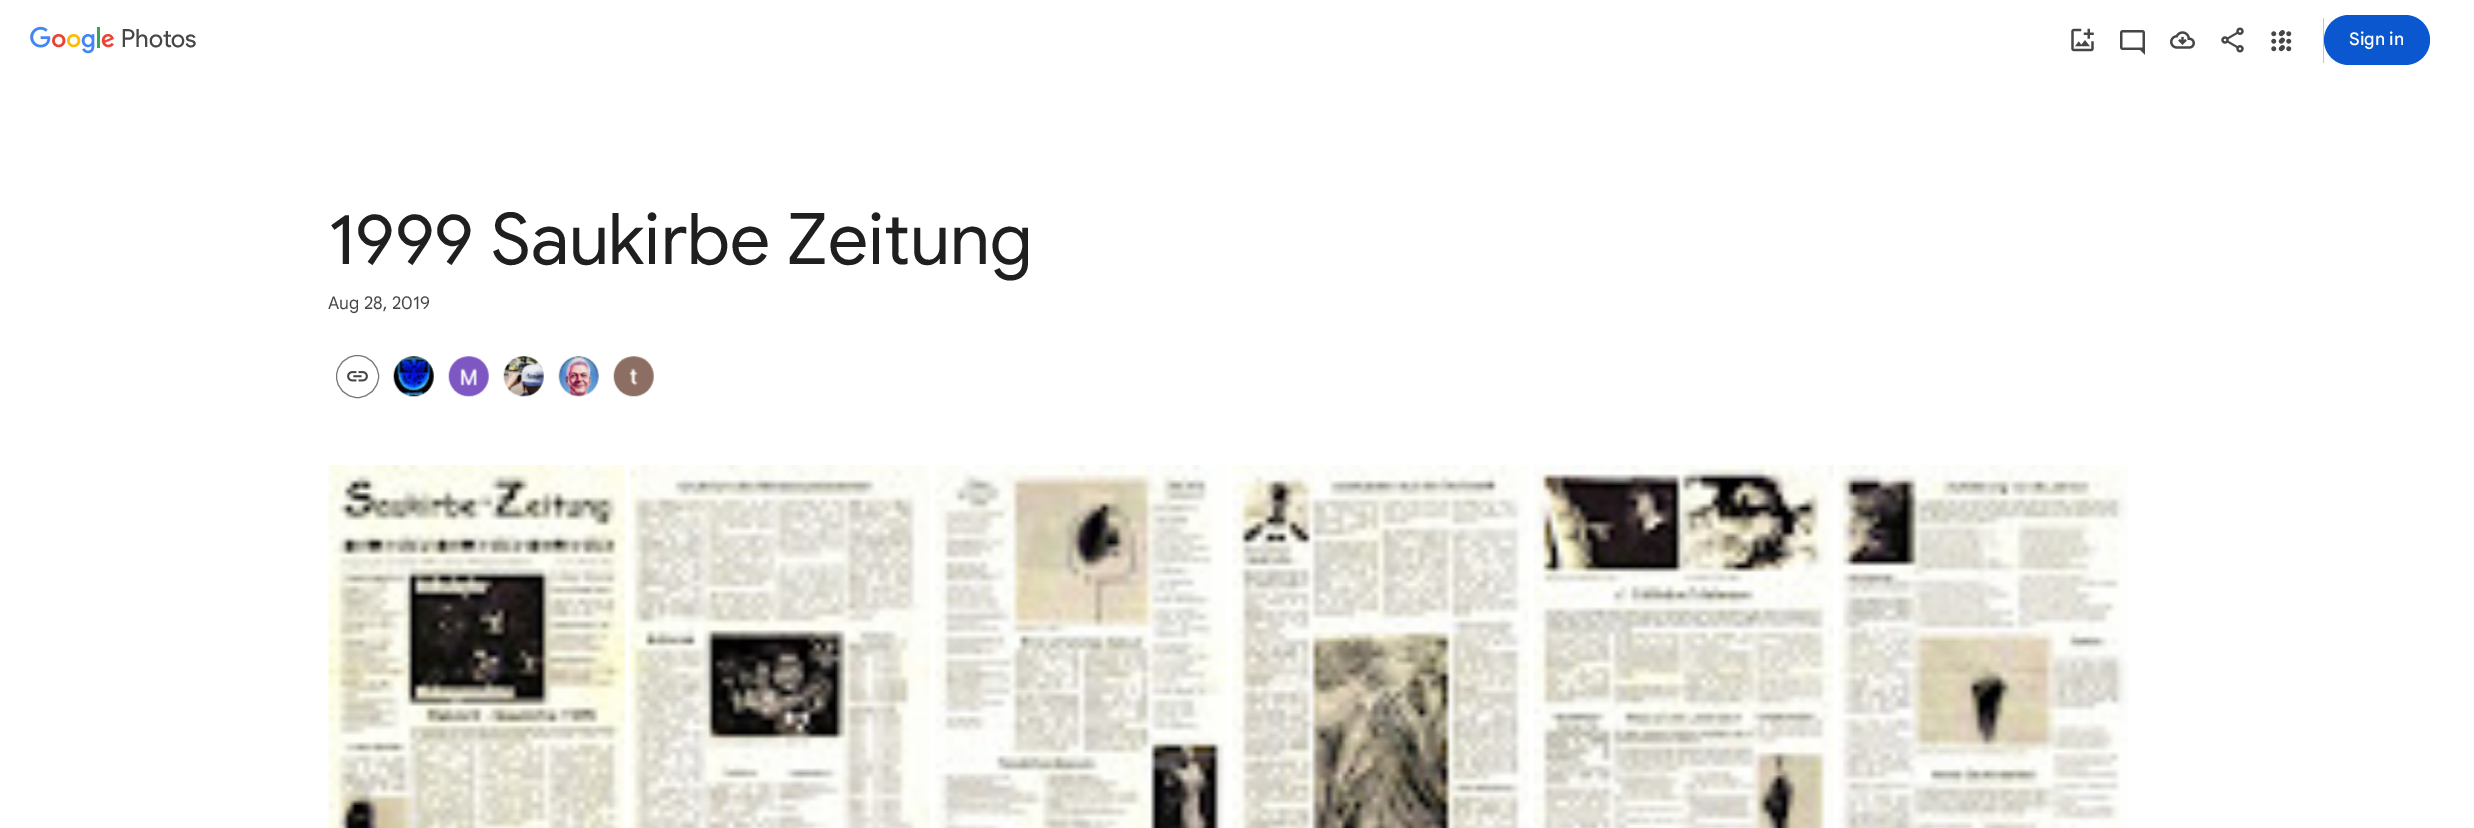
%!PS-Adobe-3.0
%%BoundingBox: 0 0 2474 828
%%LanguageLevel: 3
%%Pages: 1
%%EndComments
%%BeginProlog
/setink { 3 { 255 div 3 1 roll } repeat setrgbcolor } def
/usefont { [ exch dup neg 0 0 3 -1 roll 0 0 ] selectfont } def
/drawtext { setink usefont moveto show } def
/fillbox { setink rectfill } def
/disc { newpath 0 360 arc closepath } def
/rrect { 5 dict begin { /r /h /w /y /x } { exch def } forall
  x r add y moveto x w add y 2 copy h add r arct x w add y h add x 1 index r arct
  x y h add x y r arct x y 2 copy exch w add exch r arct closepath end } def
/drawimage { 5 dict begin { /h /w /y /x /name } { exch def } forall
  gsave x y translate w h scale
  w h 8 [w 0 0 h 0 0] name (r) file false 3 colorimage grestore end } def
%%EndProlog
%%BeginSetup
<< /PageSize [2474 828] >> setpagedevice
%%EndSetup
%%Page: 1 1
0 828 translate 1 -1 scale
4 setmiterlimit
0 0 2474 828 255 255 255 fillbox
(assets/img1.rgb) 30 26 84 28 drawimage
(Photos) 121 47 /ProductSans-Regular 25 68 71 70 drawtext
(assets/img2.rgb) 2071 28 23 24 drawimage
(assets/img3.rgb) 2120 30 25 25 drawimage
(assets/img4.rgb) 2170 31 25 18 drawimage
(assets/img5.rgb) 2221 27 23 26 drawimage
(assets/img6.rgb) 2280 30 5 20 drawimage
2323 18 1 45 196 199 197 fillbox
(1999 Saukirbe Zeitung) 328 264 /GoogleSans-Regular 71.25 31 31 31 drawtext
(Aug 28, 2019) 328 309 /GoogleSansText-Regular 17.5 68 71 70 drawtext
116 119 117 setink
357.5 376.5 21 disc stroke
(assets/img7.rgb) 347 371 21 11 drawimage
(assets/img8.rgb) 393 356 41 41 drawimage
(assets/img9.rgb) 448 356 41 41 drawimage
(assets/img10.rgb) 503 356 41 41 drawimage
(assets/img11.rgb) 558 356 41 41 drawimage
(assets/img12.rgb) 613 356 41 41 drawimage
(assets/img13.rgb) 328 465 298 363 drawimage
(assets/img14.rgb) 629 465 302 363 drawimage
(assets/img15.rgb) 934 465 294 363 drawimage
(assets/img16.rgb) 1232 465 297 363 drawimage
(assets/img17.rgb) 1533 465 301 363 drawimage
(assets/img18.rgb) 1838 465 291 363 drawimage
(assets/img19.rgb) 2271 31 21 21 drawimage
11 87 208 setink
2324 15 106 50 25 rrect fill
(Sign in) 2349 45 /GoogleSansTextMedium-Medium 17.5 255 255 255 drawtext
showpage
%%EOF
